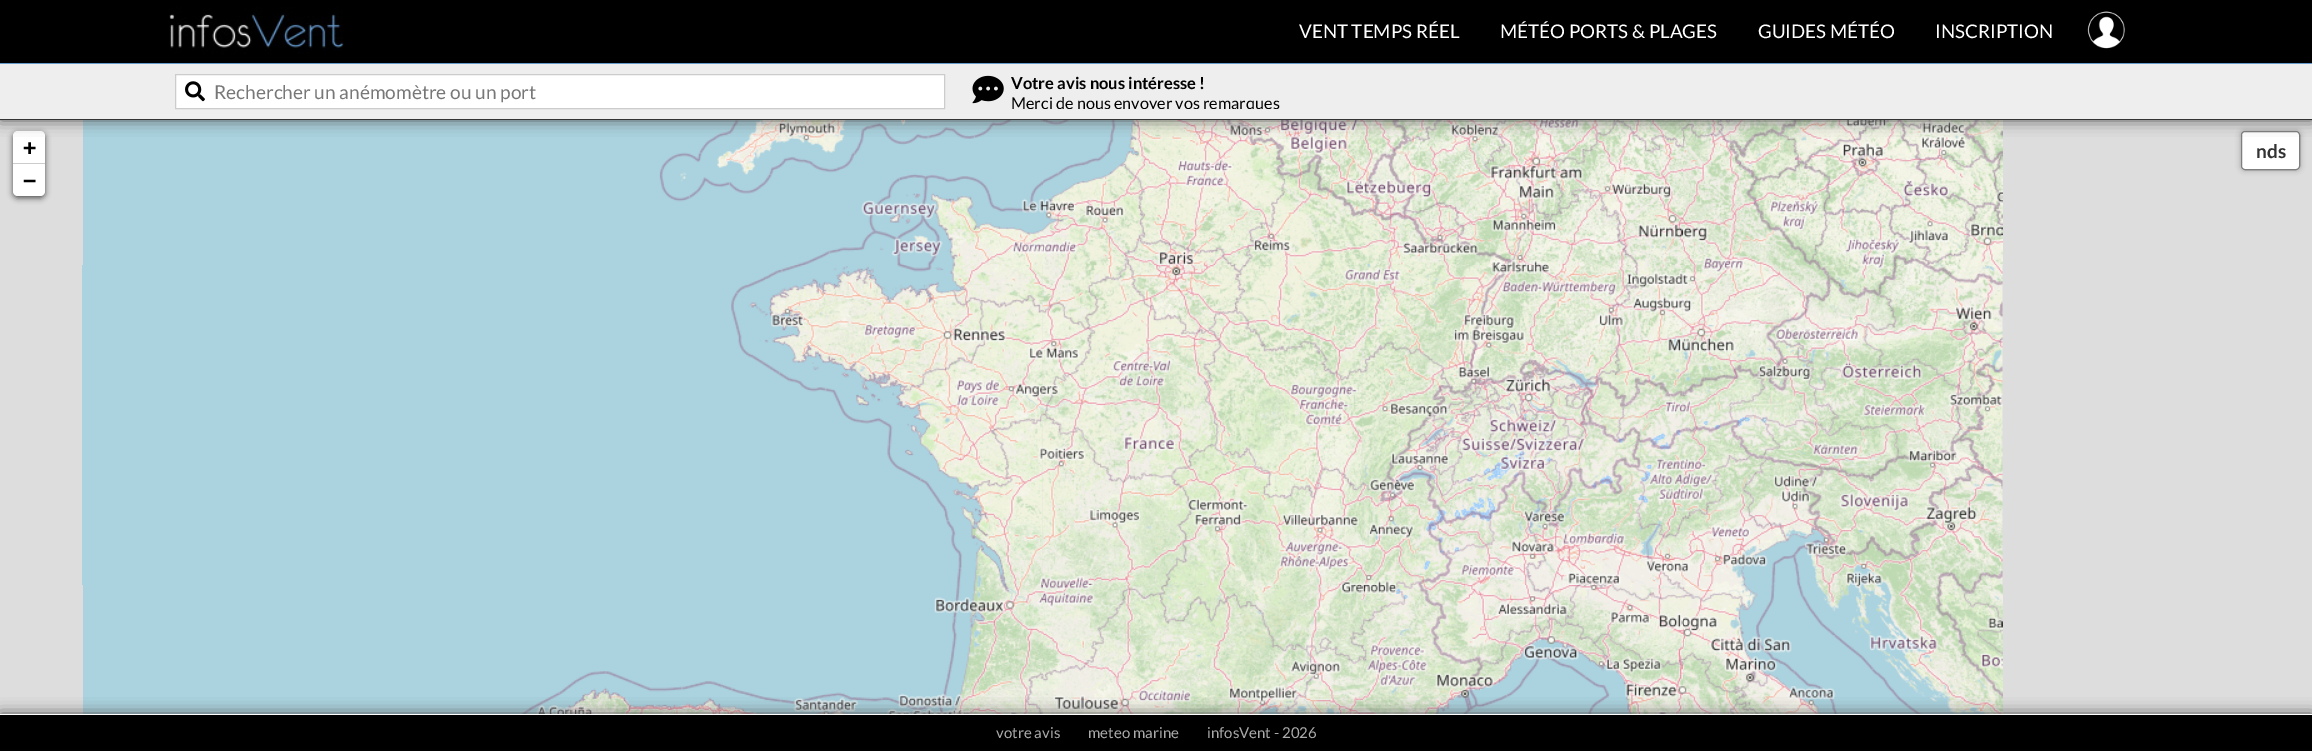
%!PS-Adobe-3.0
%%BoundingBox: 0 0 2312 751
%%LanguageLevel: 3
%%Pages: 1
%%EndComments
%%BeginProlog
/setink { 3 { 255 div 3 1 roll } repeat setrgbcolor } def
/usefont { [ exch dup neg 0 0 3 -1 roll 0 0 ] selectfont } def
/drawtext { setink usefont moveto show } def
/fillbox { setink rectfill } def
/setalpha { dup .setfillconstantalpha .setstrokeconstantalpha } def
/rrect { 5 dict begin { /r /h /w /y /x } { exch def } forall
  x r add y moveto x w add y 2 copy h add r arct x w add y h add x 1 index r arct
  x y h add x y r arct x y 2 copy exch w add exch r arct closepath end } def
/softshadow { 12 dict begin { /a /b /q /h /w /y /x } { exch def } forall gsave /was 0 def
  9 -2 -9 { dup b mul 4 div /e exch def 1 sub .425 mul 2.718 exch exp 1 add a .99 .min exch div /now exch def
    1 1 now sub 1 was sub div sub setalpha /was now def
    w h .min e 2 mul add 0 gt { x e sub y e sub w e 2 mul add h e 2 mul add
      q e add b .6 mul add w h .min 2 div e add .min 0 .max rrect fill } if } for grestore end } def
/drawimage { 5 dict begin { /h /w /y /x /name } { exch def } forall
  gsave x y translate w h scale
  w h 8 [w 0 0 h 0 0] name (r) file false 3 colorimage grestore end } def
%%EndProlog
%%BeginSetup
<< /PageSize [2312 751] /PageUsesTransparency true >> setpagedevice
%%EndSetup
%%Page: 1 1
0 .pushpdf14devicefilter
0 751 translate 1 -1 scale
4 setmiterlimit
0 0 2312 751 221 221 221 fillbox
0 0 0 setink
13 133 32 65 5 3 0.65 softshadow
255 255 255 setink
18 131 moveto 40 131 lineto 43 131 45 133 45 136 curveto 45 164 lineto 13 164 lineto 13 136 lineto 13 133 15 131 18 131 curveto closepath fill
83 120 320 145 170 211 223 fillbox
(assets/img5.rgb) 403 120 320 145 drawimage
(assets/img6.rgb) 723 120 320 145 drawimage
(assets/img7.rgb) 1043 120 320 145 drawimage
(assets/img8.rgb) 1363 120 320 145 drawimage
(assets/img9.rgb) 1683 120 320 145 drawimage
0 0 0 setink
2241 131 59 39 4 3 0.3 softshadow
255 255 255 setink
2241 131 59 39 4 rrect fill
0.5 setalpha
0 0 0 setink
2241.5 131.5 58 38 3.5 rrect stroke
1 setalpha
85 85 85 setink
0 0 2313 120 0 7.5 1 softshadow
0 0 2312 63 0 0 0 fillbox
0 119 2312 1 51 51 51 fillbox
(assets/img1.rgb) 169 6 175 48 drawimage
(VENT TEMPS RÉEL) 1299 38 /Lato-Regular 18.75 255 255 255 drawtext
(MÉTÉO PORTS & PLAGES) 1500 38 /Lato-Regular 18.75 255 255 255 drawtext
(GUIDES MÉTÉO) 1758 38 /Lato-Regular 18.75 255 255 255 drawtext
(INSCRIPTION) 1935 38 /Lato-Regular 18.75 255 255 255 drawtext
(assets/img2.rgb) 2087 11 38 38 drawimage
0 64 2312 55 238 238 238 fillbox
0 63 2312 1 102 153 204 fillbox
255 255 255 setink
175.5 74.5 moveto 944.5 74.5 lineto 944.5 108.5 lineto 175.5 108.5 lineto closepath gsave fill grestore
204 204 204 setink
stroke
(assets/img3.rgb) 185 81 20 21 drawimage
(Rechercher un anémomètre ou un port) 214 99 /Lato-Regular 19.1 119 119 119 drawtext
(assets/img4.rgb) 972 75 32 29 drawimage
(Votre avis nous intéresse !) 1011 89 /Lato-Bold 16.5 0 0 0 drawtext
gsave
960 74 498 35 rectclip
(Merci de nous envoyer vos remarques) 1011 109 /Lato-Regular 16.25 0 0 0 drawtext
grestore
13 163 32 1 204 204 204 fillbox
(+) 23 155 /DejaVuSansMono-Bold 22 0 0 0 drawtext
255 255 255 setink
13 164 moveto 45 164 lineto 45 191 lineto 45 194 43 196 40 196 curveto 18 196 lineto 15 196 13 194 13 191 curveto closepath fill
(−) 23 188 /DejaVuSansMono-Bold 22 0 0 0 drawtext
82 265 641 320 170 211 223 fillbox
(assets/img10.rgb) 723 265 320 320 drawimage
(assets/img11.rgb) 1042 265 321 320 drawimage
(assets/img12.rgb) 1362 265 321 320 drawimage
(assets/img13.rgb) 1682 265 321 320 drawimage
83 585 320 129 170 211 223 fillbox
(assets/img14.rgb) 403 585 320 129 drawimage
(assets/img15.rgb) 723 585 320 129 drawimage
(assets/img16.rgb) 1043 585 320 129 drawimage
(assets/img17.rgb) 1363 585 320 129 drawimage
(assets/img18.rgb) 1683 585 320 129 drawimage
(nds) 2256 158 /Lato-Bold 19 51 51 51 drawtext
85 85 85 setink
0 714 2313 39 0 7.5 1 softshadow
0 715 2312 36 0 0 0 fillbox
0 714 2312 1 255 255 255 fillbox
(votre avis) 996 738 /Lato-Regular 15 170 170 170 drawtext
(meteo marine) 1088 738 /Lato-Regular 15 170 170 170 drawtext
(infosVent - 2026) 1207 738 /Lato-Regular 15 170 170 170 drawtext
.poppdf14devicefilter showpage
%%EOF
